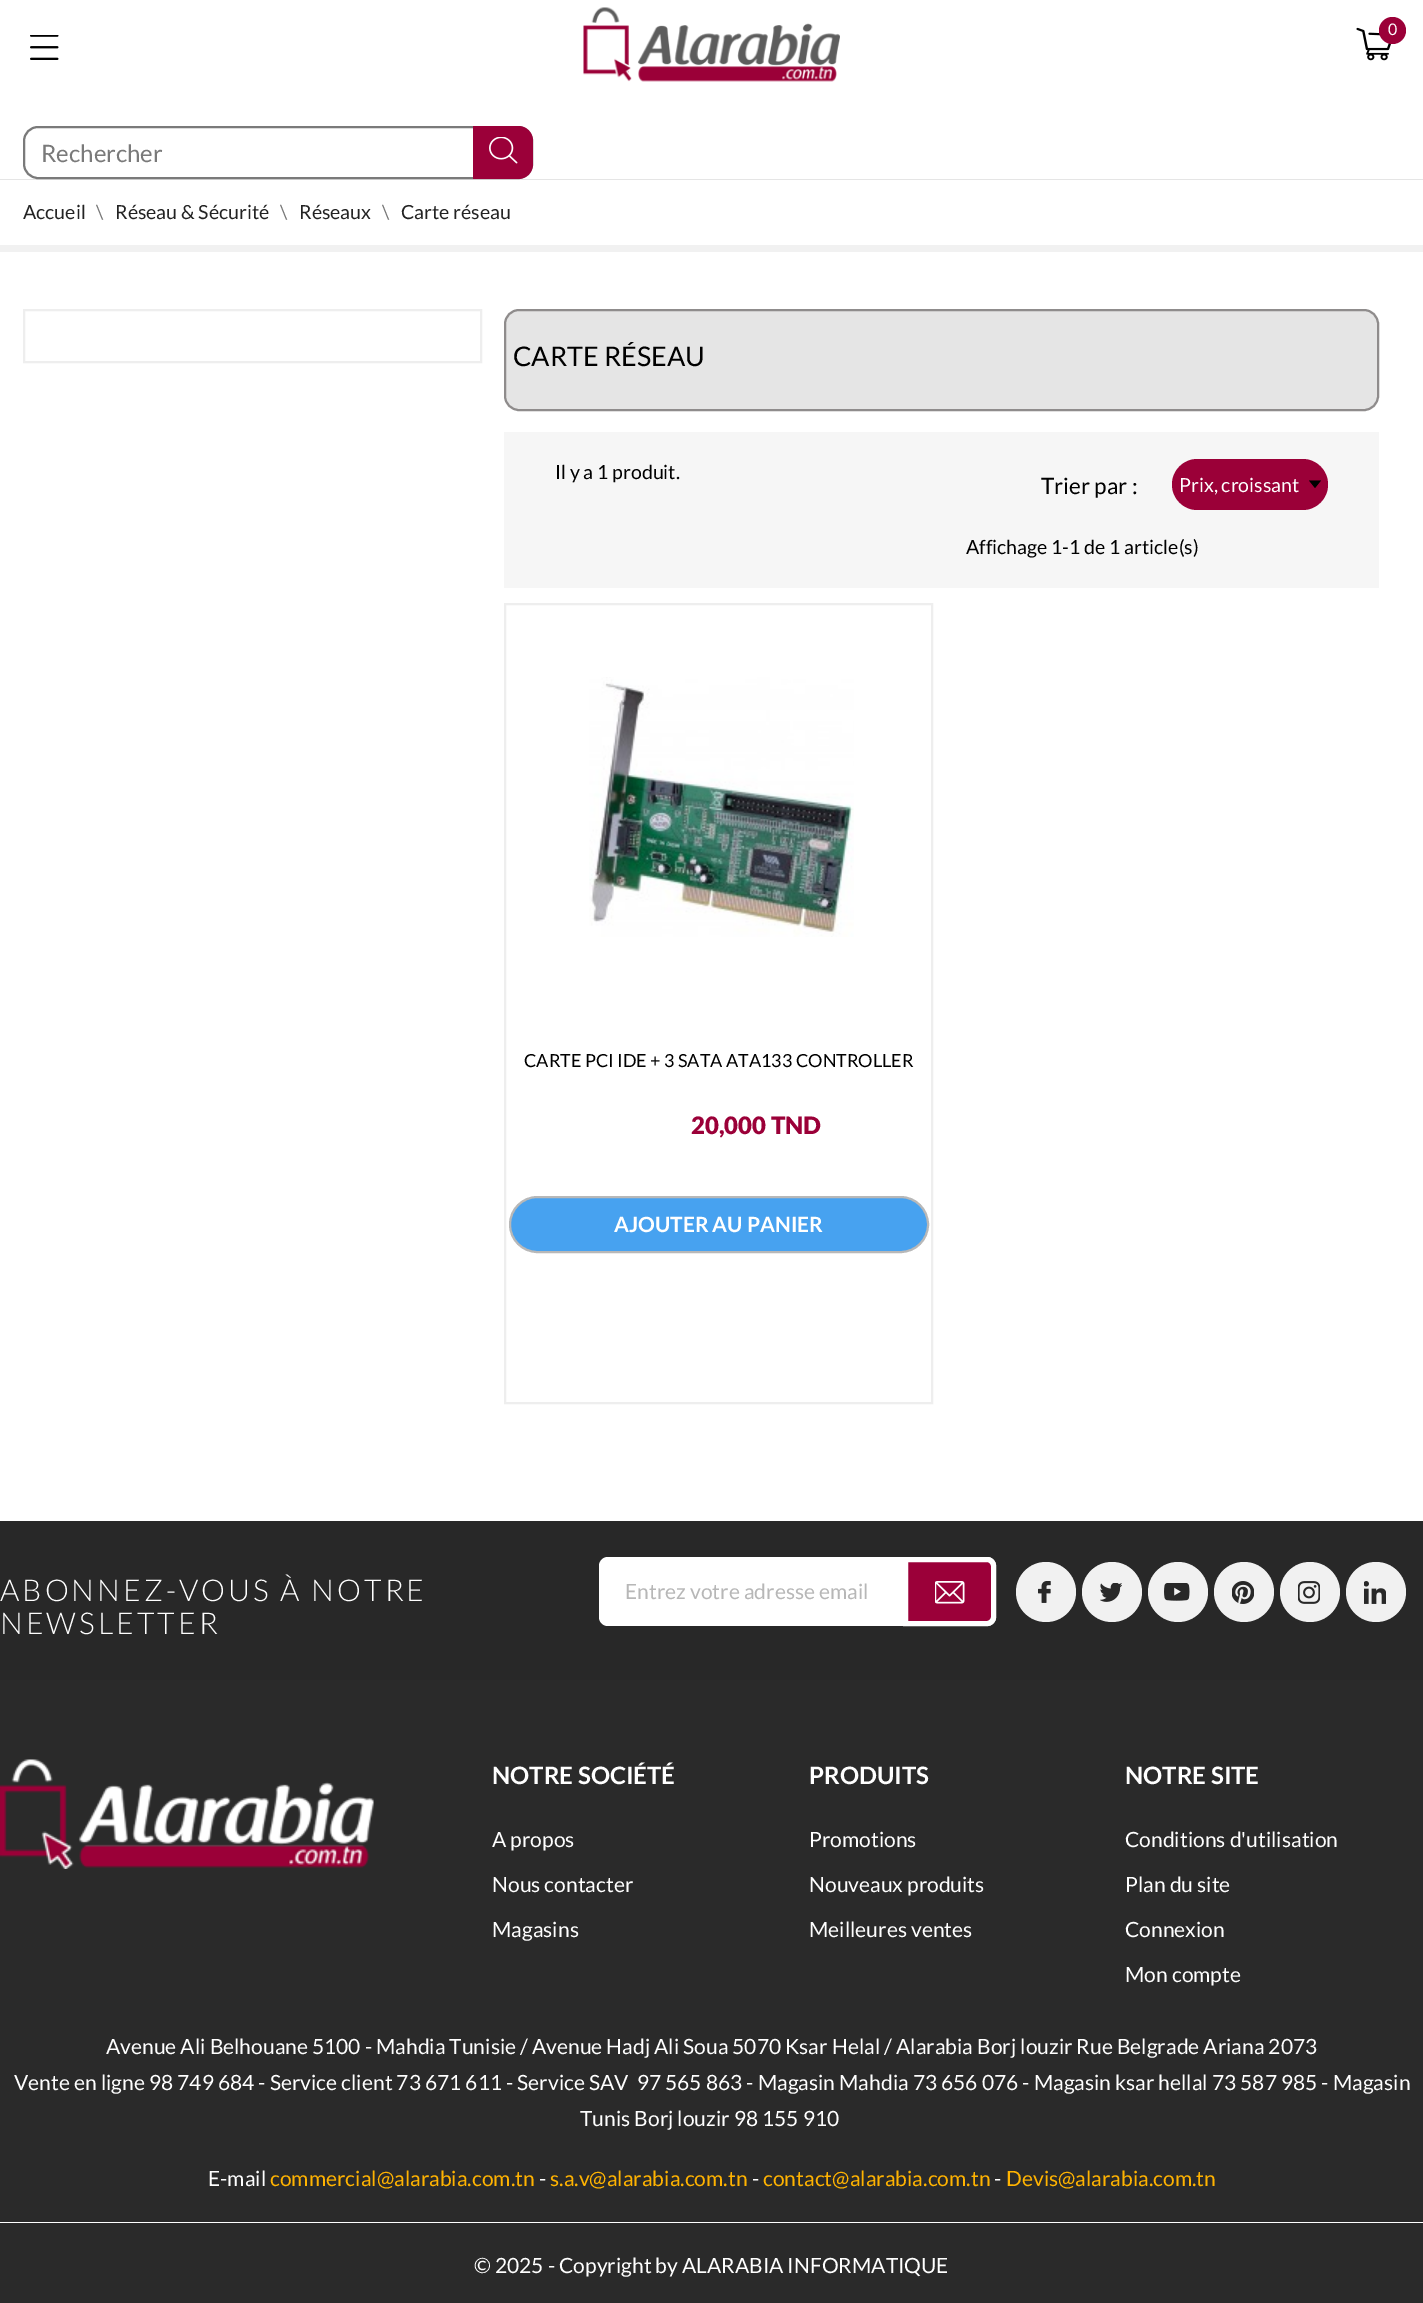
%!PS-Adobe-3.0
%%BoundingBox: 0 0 1423 2303
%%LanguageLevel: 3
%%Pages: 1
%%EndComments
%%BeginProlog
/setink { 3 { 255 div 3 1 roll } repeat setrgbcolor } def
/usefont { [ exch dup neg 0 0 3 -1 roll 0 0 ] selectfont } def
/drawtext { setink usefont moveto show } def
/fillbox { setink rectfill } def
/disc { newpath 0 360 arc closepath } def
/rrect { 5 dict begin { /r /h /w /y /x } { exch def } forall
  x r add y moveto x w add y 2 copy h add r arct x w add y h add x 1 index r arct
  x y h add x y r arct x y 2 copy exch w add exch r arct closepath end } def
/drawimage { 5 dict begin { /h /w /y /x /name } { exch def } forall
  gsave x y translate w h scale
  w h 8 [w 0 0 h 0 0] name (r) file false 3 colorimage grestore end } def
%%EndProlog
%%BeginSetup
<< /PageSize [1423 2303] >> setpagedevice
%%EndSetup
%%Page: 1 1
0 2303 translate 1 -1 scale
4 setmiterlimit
0 0 1423 2303 255 255 255 fillbox
0 179 1423 1 229 229 229 fillbox
(assets/img1.rgb) 583 7 257 75 drawimage
(assets/img2.rgb) 1356 27 36 34 drawimage
155 0 56 setink
1392.5 30.5 13.5 disc fill
(0) 1388 35 /Lato-Regular 16 255 255 255 drawtext
(assets/img3.rgb) 30 35 29 25 drawimage
122 122 122 setink
2 setlinewidth
24 127 508 51 14 rrect stroke
(Rechercher) 41 162 /Lato-Regular 24 122 122 122 drawtext
155 0 57 setink
473 126 moveto 518 126 lineto 526.5 126 533 132.5 533 141 curveto 533 164 lineto 533 172.5 526.5 179 518 179 curveto 473 179 lineto closepath fill
(assets/img4.rgb) 489 137 29 27 drawimage
(Accueil) 23 219 /Lato-Regular 19.5 35 35 35 drawtext
(\\) 96 219 /Lato-Regular 19.5 122 122 122 drawtext
(Réseau & Sécurité) 115 219 /Lato-Regular 19.5 35 35 35 drawtext
(\\) 280 219 /Lato-Regular 19.5 122 122 122 drawtext
(Réseaux) 299 219 /Lato-Regular 19.5 35 35 35 drawtext
(\\) 382 219 /Lato-Regular 19.5 122 122 122 drawtext
(Carte réseau) 401 219 /Lato-Regular 19.5 35 35 35 drawtext
0 245 1423 7 241 241 241 fillbox
238 238 238 setink
24 310 457 52 rectstroke
229 229 229 setink
505 310 873 100 14 rrect gsave fill grestore
143 140 140 setink
stroke
(CARTE RÉSEAU) 513 366 /Lato-Regular 27 0 0 0 drawtext
504 432 875 156 246 246 246 fillbox
(Il y a 1 produit.) 555 479 /Lato-Regular 19.5 0 0 0 drawtext
(Trier par :) 1041 494 /Lato-Regular 22.5 0 0 0 drawtext
155 0 56 setink
1172 459 156 51 25.5 rrect fill
(Prix, croissant) 1179 492 /Lato-Regular 19.5 255 255 255 drawtext
0 0 0 setink
1315 488 moveto 1309 480.5 lineto 1321 480.5 lineto closepath eofill
(Affichage 1-1 de 1 article\(s\)) 966 554 /Lato-Regular 19.5 0 0 0 drawtext
238 238 238 setink
505 604 427 799 rectstroke
(assets/img5.rgb) 589 677 265 260 drawimage
(CARTE PCI IDE + 3 SATA ATA133 CONTROLLER) 524 1067 /Lato-Regular 18 0 0 0 drawtext
(20,000 TND) 691 1134 /Lato-Black 24 155 0 56 drawtext
71 162 240 setink
510 1197 418 55 27.5 rrect gsave fill grestore
184 184 184 setink
stroke
(AJOUTER AU PANIER) 614 1232 /Lato-Bold 21 255 255 255 drawtext
0 1521 1423 159 40 40 40 fillbox
/Lato-Light 30 usefont
255 255 255 setink
0 1601 moveto 3 0 (ABONNEZ-VOUS À NOTRE) ashow
0 1634 moveto 3 0 (NEWSLETTER) ashow
599 1557 397 69 9 rrect fill
(Entrez votre adresse email) 625 1599 /Lato-Regular 21 183 183 183 drawtext
155 0 57 setink
905.5 1559.5 moveto 987 1559.5 lineto 990.5 1559.5 993.5 1562.5 993.5 1566 curveto 993.5 1617 lineto 993.5 1620.5 990.5 1623.5 987 1623.5 curveto 905.5 1623.5 lineto closepath gsave fill grestore
255 255 255 setink
5 setlinewidth
stroke
(assets/img6.rgb) 935 1581 30 23 drawimage
241 241 241 setink
1046 1592 30 disc fill
(assets/img7.rgb) 1038 1581 13 22 drawimage
1112 1592 30 disc fill
(assets/img8.rgb) 1100 1583 22 19 drawimage
1178 1592 30 disc fill
(assets/img9.rgb) 1164 1583 26 18 drawimage
1244 1592 30 disc fill
(assets/img10.rgb) 1232 1581 22 23 drawimage
1310 1592 30 disc fill
(assets/img11.rgb) 1298 1581 22 23 drawimage
1376 1592 30 disc fill
(assets/img12.rgb) 1364 1581 22 23 drawimage
0 1680 1423 542 42 42 42 fillbox
(assets/img13.rgb) 0 1759 374 110 drawimage
(NOTRE SOCIÉTÉ) 492 1784 /Lato-Bold 24 255 255 255 drawtext
(A propos) 492 1847 /Lato-Regular 21 255 255 255 drawtext
(Nous contacter) 492 1892 /Lato-Regular 21 255 255 255 drawtext
(Magasins) 492 1937 /Lato-Regular 21 255 255 255 drawtext
(PRODUITS) 809 1784 /Lato-Bold 24 255 255 255 drawtext
(Promotions) 809 1847 /Lato-Regular 21 255 255 255 drawtext
(Nouveaux produits) 809 1892 /Lato-Regular 21 255 255 255 drawtext
(Meilleures ventes) 809 1937 /Lato-Regular 21 255 255 255 drawtext
(NOTRE SITE) 1125 1784 /Lato-Bold 24 255 255 255 drawtext
(Conditions d'utilisation) 1125 1847 /Lato-Regular 21 255 255 255 drawtext
(Plan du site) 1125 1892 /Lato-Regular 21 255 255 255 drawtext
(Connexion) 1125 1937 /Lato-Regular 21 255 255 255 drawtext
(Mon compte) 1125 1982 /Lato-Regular 21 255 255 255 drawtext
(Avenue Ali Belhouane 5100 - Mahdia Tunisie / Avenue Hadj Ali Soua 5070 Ksar Helal / Alarabia Borj louzir Rue Belgrade Ariana 2073) 106 2054 /Lato-Regular 21 255 255 255 drawtext
(Vente en ligne 98 749 684 - Service client 73 671 611 - Service SAV  97 565 863 - Magasin Mahdia 73 656 076 - Magasin ksar hellal 73 587 985 - Magasin) 14 2090 /Lato-Regular 21 255 255 255 drawtext
(Tunis Borj louzir 98 155 910) 580 2126 /Lato-Regular 21 255 255 255 drawtext
(E-mail) 208 2186 /Lato-Regular 21 255 255 255 drawtext
(commercial@alarabia.com.tn) 270 2186 /Lato-Regular 21 255 179 1 drawtext
(-) 539 2186 /Lato-Regular 21 255 255 255 drawtext
(s.a.v@alarabia.com.tn) 550 2186 /Lato-Regular 21 255 179 1 drawtext
(-) 752 2186 /Lato-Regular 21 255 255 255 drawtext
(contact@alarabia.com.tn) 763 2186 /Lato-Regular 21 255 179 1 drawtext
(-) 994 2186 /Lato-Regular 21 255 255 255 drawtext
(Devis@alarabia.com.tn) 1006 2186 /Lato-Regular 21 255 179 1 drawtext
0 2223 1423 80 42 42 42 fillbox
(© 2025 - Copyright by ALARABIA INFORMATIQUE) 474 2273 /Lato-Regular 21 255 255 255 drawtext
showpage
%%EOF
